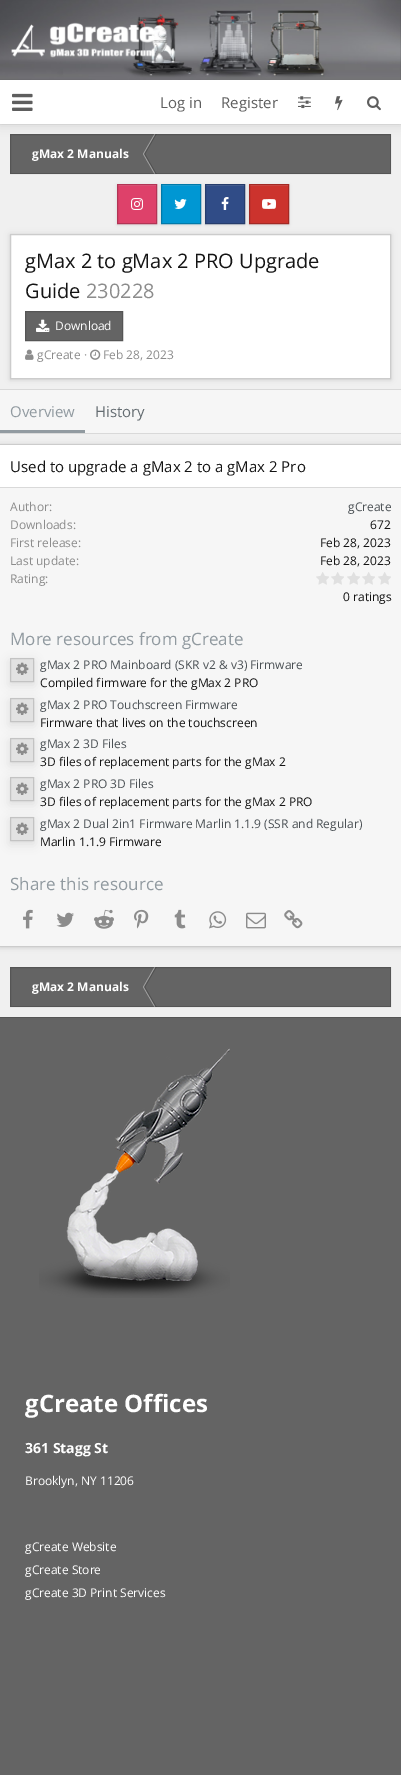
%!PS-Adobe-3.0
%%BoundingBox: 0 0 401 1775
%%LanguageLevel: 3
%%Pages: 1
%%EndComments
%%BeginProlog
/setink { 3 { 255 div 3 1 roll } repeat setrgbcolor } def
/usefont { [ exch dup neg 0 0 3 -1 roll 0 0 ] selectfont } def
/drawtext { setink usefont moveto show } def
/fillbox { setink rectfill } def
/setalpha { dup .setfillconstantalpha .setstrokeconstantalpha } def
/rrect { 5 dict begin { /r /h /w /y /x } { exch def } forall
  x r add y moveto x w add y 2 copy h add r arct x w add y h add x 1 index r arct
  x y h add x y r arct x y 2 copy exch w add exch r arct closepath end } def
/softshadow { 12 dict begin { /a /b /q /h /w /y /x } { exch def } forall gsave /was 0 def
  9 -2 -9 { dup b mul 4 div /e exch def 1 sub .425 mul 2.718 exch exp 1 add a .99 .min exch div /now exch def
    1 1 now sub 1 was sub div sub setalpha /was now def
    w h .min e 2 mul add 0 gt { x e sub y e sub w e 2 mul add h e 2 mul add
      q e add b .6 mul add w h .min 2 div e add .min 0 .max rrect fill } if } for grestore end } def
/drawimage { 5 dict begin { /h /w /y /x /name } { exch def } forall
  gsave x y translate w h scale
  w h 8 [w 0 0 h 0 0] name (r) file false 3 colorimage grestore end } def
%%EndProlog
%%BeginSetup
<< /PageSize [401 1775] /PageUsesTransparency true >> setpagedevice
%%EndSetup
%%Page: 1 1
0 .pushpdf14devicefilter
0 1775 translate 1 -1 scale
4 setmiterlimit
0 0 401 1775 255 255 255 fillbox
(assets/img1.rgb) 0 0 401 80 drawimage
(assets/img2.rgb) 11 22 144 36 drawimage
0 124 401 1 228 228 228 fillbox
0 125 401 892 240 240 240 fillbox
10 134 381 40 100 100 100 fillbox
162 162 162 setink
154.5 134 moveto 155.5 134 lineto 144 154 lineto 143 154 lineto closepath fill
0.25 setalpha
0 0 0 setink
155.5 134 moveto 156.5 134 lineto 145 154 lineto 144 154 lineto closepath fill
1 setalpha
162 162 162 setink
143 154 moveto 144 154 lineto 155.5 174 lineto 154.5 174 lineto closepath fill
0.25 setalpha
0 0 0 setink
144 154 moveto 145 154 lineto 156.5 174 lineto 155.5 174 lineto closepath fill
0.15 setalpha
10.5 134.5 380 39 rectstroke
1 setalpha
0 82 401 44 0 5 0.1 softshadow
0 80 401 44 255 255 255 fillbox
(assets/img3.rgb) 12 93 21 18 drawimage
(Log in) 160 108 /OpenSans-Regular 15 94 94 94 drawtext
(Register) 221 108 /OpenSans-Regular 15 94 94 94 drawtext
(assets/img4.rgb) 298 96 13 13 drawimage
(assets/img5.rgb) 335 96 8 15 drawimage
(assets/img6.rgb) 367 96 14 15 drawimage
(gMax 2 Manuals) 32 158 /OpenSans-Bold 12 255 255 255 drawtext
0 0 0 setink
117 185 40 40 0 1.5 0.1 softshadow
10 234 381 145 0 4 0.06 softshadow
118 186 38 37 222 65 106 fillbox
118 185 38 1 227 94 128 fillbox
(assets/img7.rgb) 131 198 12 12 drawimage
178 52 85 setink
117.5 184.5 39 39 rectstroke
0 0 0 setink
161 185 40 40 0 1.5 0.1 softshadow
162 186 38 37 0 151 211 fillbox
162 185 38 1 38 167 218 fillbox
(assets/img8.rgb) 174 199 13 10 drawimage
0 121 169 setink
161.5 184.5 39 39 rectstroke
0 0 0 setink
205 185 40 40 0 1.5 0.1 softshadow
206 186 38 37 48 76 135 fillbox
206 185 38 1 79 103 153 fillbox
(assets/img9.rgb) 221 197 8 13 drawimage
38 61 108 setink
205.5 184.5 39 39 rectstroke
0 0 0 setink
249 185 40 40 0 1.5 0.1 softshadow
250 186 38 37 204 51 45 fillbox
250 185 38 1 212 82 77 fillbox
(assets/img10.rgb) 262 199 14 10 drawimage
163 41 36 setink
249.5 184.5 39 39 rectstroke
0 0 0 setink
10 235 381 145 0 1.5 0.08 softshadow
255 255 255 setink
10.5 234.5 moveto 390.5 234.5 lineto 390.5 378.5 lineto 10.5 378.5 lineto closepath gsave fill grestore
204 204 204 setink
stroke
(gMax 2 to gMax 2 PRO Upgrade) 25 268 /OpenSans-Regular 20 20 20 20 drawtext
(Guide) 25 298 /OpenSans-Regular 20 20 20 20 drawtext
(230228) 86 298 /OpenSans-Regular 20 140 140 140 drawtext
100 100 100 setink
25.5 311.5 moveto 122.5 311.5 lineto 122.5 340.5 lineto 25.5 340.5 lineto closepath gsave fill grestore
85 85 85 setink
stroke
(assets/img11.rgb) 36 319 14 13 drawimage
(Download) 55 330 /OpenSans-Regular 12 255 255 255 drawtext
(assets/img12.rgb) 25 349 9 11 drawimage
(gCreate ·) 37 359 /OpenSans-Regular 12 140 140 140 drawtext
(assets/img13.rgb) 90 349 11 11 drawimage
(Feb 28, 2023) 103 359 /OpenSans-Regular 12 140 140 140 drawtext
0 390 401 43 246 246 246 fillbox
0 389 401 1 217 217 217 fillbox
0 433 401 1 217 217 217 fillbox
0 0 0 setink
0 444 401 503 0 4 0.06 softshadow
0 430 85 3 145 154 160 fillbox
(Overview) 10 417 /OpenSans-Regular 15 145 154 160 drawtext
(History) 95 417 /OpenSans-Regular 15 100 108 113 drawtext
0 0 0 setink
0 445 401 503 0 1.5 0.08 softshadow
0 445 401 42 255 255 255 fillbox
0 444 401 1 204 204 204 fillbox
0 946 401 1 204 204 204 fillbox
(Used to upgrade a gMax 2 to a gMax 2 Pro) 10 472 /OpenSans-Regular 15 20 20 20 drawtext
0 488 401 458 246 246 246 fillbox
0 487 401 1 217 217 217 fillbox
(Author:) 10 511 /OpenSans-Regular 12 140 140 140 drawtext
(gCreate) 348 511 /OpenSans-Regular 12 74 80 84 drawtext
(Downloads:) 10 529 /OpenSans-Regular 12 140 140 140 drawtext
(672) 370 529 /OpenSans-Regular 12 20 20 20 drawtext
(First release:) 10 547 /OpenSans-Regular 12 140 140 140 drawtext
(Feb 28, 2023) 320 547 /OpenSans-Regular 12 20 20 20 drawtext
(Last update:) 10 565 /OpenSans-Regular 12 140 140 140 drawtext
(Feb 28, 2023) 320 565 /OpenSans-Regular 12 20 20 20 drawtext
(Rating:) 10 583 /OpenSans-Regular 12 140 140 140 drawtext
(assets/img14.rgb) 316 572 13 13 drawimage
(assets/img14.rgb) 331 572 13 13 drawimage
(assets/img14.rgb) 347 572 13 13 drawimage
(assets/img14.rgb) 362 572 13 13 drawimage
(assets/img14.rgb) 378 572 13 13 drawimage
(0 ratings) 343 601 /OpenSans-Regular 12 20 20 20 drawtext
(More resources from gCreate) 10 645 /OpenSans-Regular 17 145 154 160 drawtext
0 0 0 setink
10 661 24 24 0 5 0.1 softshadow
11 659 22 22 226 226 226 fillbox
(assets/img15.rgb) 16 662 13 13 drawimage
195 195 195 setink
10.5 658.5 23 23 rectstroke
(gMax 2 PRO Mainboard \(SKR v2 & v3\) Firmware) 40 669 /OpenSans-Regular 12 74 80 84 drawtext
(Compiled firmware for the gMax 2 PRO) 40 687 /OpenSans-Regular 12 20 20 20 drawtext
0 0 0 setink
10 701 24 24 0 5 0.1 softshadow
11 699 22 22 226 226 226 fillbox
(assets/img15.rgb) 16 702 13 13 drawimage
195 195 195 setink
10.5 698.5 23 23 rectstroke
(gMax 2 PRO Touchscreen Firmware) 40 709 /OpenSans-Regular 12 74 80 84 drawtext
(Firmware that lives on the touchscreen) 40 727 /OpenSans-Regular 12 20 20 20 drawtext
0 0 0 setink
10 741 24 24 0 5 0.1 softshadow
11 739 22 22 226 226 226 fillbox
(assets/img15.rgb) 16 742 13 13 drawimage
195 195 195 setink
10.5 738.5 23 23 rectstroke
(gMax 2 3D Files) 40 748 /OpenSans-Regular 12 74 80 84 drawtext
(3D files of replacement parts for the gMax 2) 40 766 /OpenSans-Regular 12 20 20 20 drawtext
0 0 0 setink
10 780 24 24 0 5 0.1 softshadow
11 778 22 22 226 226 226 fillbox
(assets/img15.rgb) 16 782 13 13 drawimage
195 195 195 setink
10.5 777.5 23 23 rectstroke
(gMax 2 PRO 3D Files) 40 788 /OpenSans-Regular 12 74 80 84 drawtext
(3D files of replacement parts for the gMax 2 PRO) 40 806 /OpenSans-Regular 12 20 20 20 drawtext
0 0 0 setink
10 820 24 24 0 5 0.1 softshadow
11 818 22 22 226 226 226 fillbox
(assets/img15.rgb) 16 822 13 13 drawimage
195 195 195 setink
10.5 817.5 23 23 rectstroke
(gMax 2 Dual 2in1 Firmware Marlin 1.1.9 \(SSR and Regular\)) 40 828 /OpenSans-Regular 12 74 80 84 drawtext
(Marlin 1.1.9 Firmware) 40 846 /OpenSans-Regular 12 20 20 20 drawtext
(Share this resource) 10 890 /OpenSans-Regular 17 145 154 160 drawtext
(assets/img16.rgb) 23 909 10 20 drawimage
(assets/img17.rgb) 56 912 18 15 drawimage
(assets/img18.rgb) 94 909 20 20 drawimage
(assets/img19.rgb) 134 909 15 20 drawimage
(assets/img20.rgb) 174 909 12 20 drawimage
(assets/img21.rgb) 209 911 18 18 drawimage
(assets/img22.rgb) 246 912 20 17 drawimage
(assets/img23.rgb) 284 910 19 19 drawimage
10 967 381 40 100 100 100 fillbox
162 162 162 setink
154.5 967 moveto 155.5 967 lineto 144 987 lineto 143 987 lineto closepath fill
0.25 setalpha
0 0 0 setink
155.5 967 moveto 156.5 967 lineto 145 987 lineto 144 987 lineto closepath fill
1 setalpha
162 162 162 setink
143 987 moveto 144 987 lineto 155.5 1007 lineto 154.5 1007 lineto closepath fill
0.25 setalpha
0 0 0 setink
144 987 moveto 145 987 lineto 156.5 1007 lineto 155.5 1007 lineto closepath fill
0.15 setalpha
10.5 967.5 380 39 rectstroke
1 setalpha
(gMax 2 Manuals) 32 991 /OpenSans-Bold 12 255 255 255 drawtext
0 1018 401 757 100 100 100 fillbox
0 1017 401 1 85 85 85 fillbox
(assets/img24.rgb) 39 1048 191 250 drawimage
(gCreate Offices) 25 1412 /OpenSans-Bold 24 255 255 255 drawtext
(361 Stagg St) 25 1453 /OpenSans-Bold 14 255 255 255 drawtext
(Brooklyn, NY 11206) 25 1485 /OpenSans-Regular 12 255 255 255 drawtext
(gCreate Website) 25 1551 /OpenSans-Regular 12 255 255 255 drawtext
(gCreate Store) 25 1574 /OpenSans-Regular 12 255 255 255 drawtext
(gCreate 3D Print Services) 25 1597 /OpenSans-Regular 12 255 255 255 drawtext
.poppdf14devicefilter showpage
%%EOF
